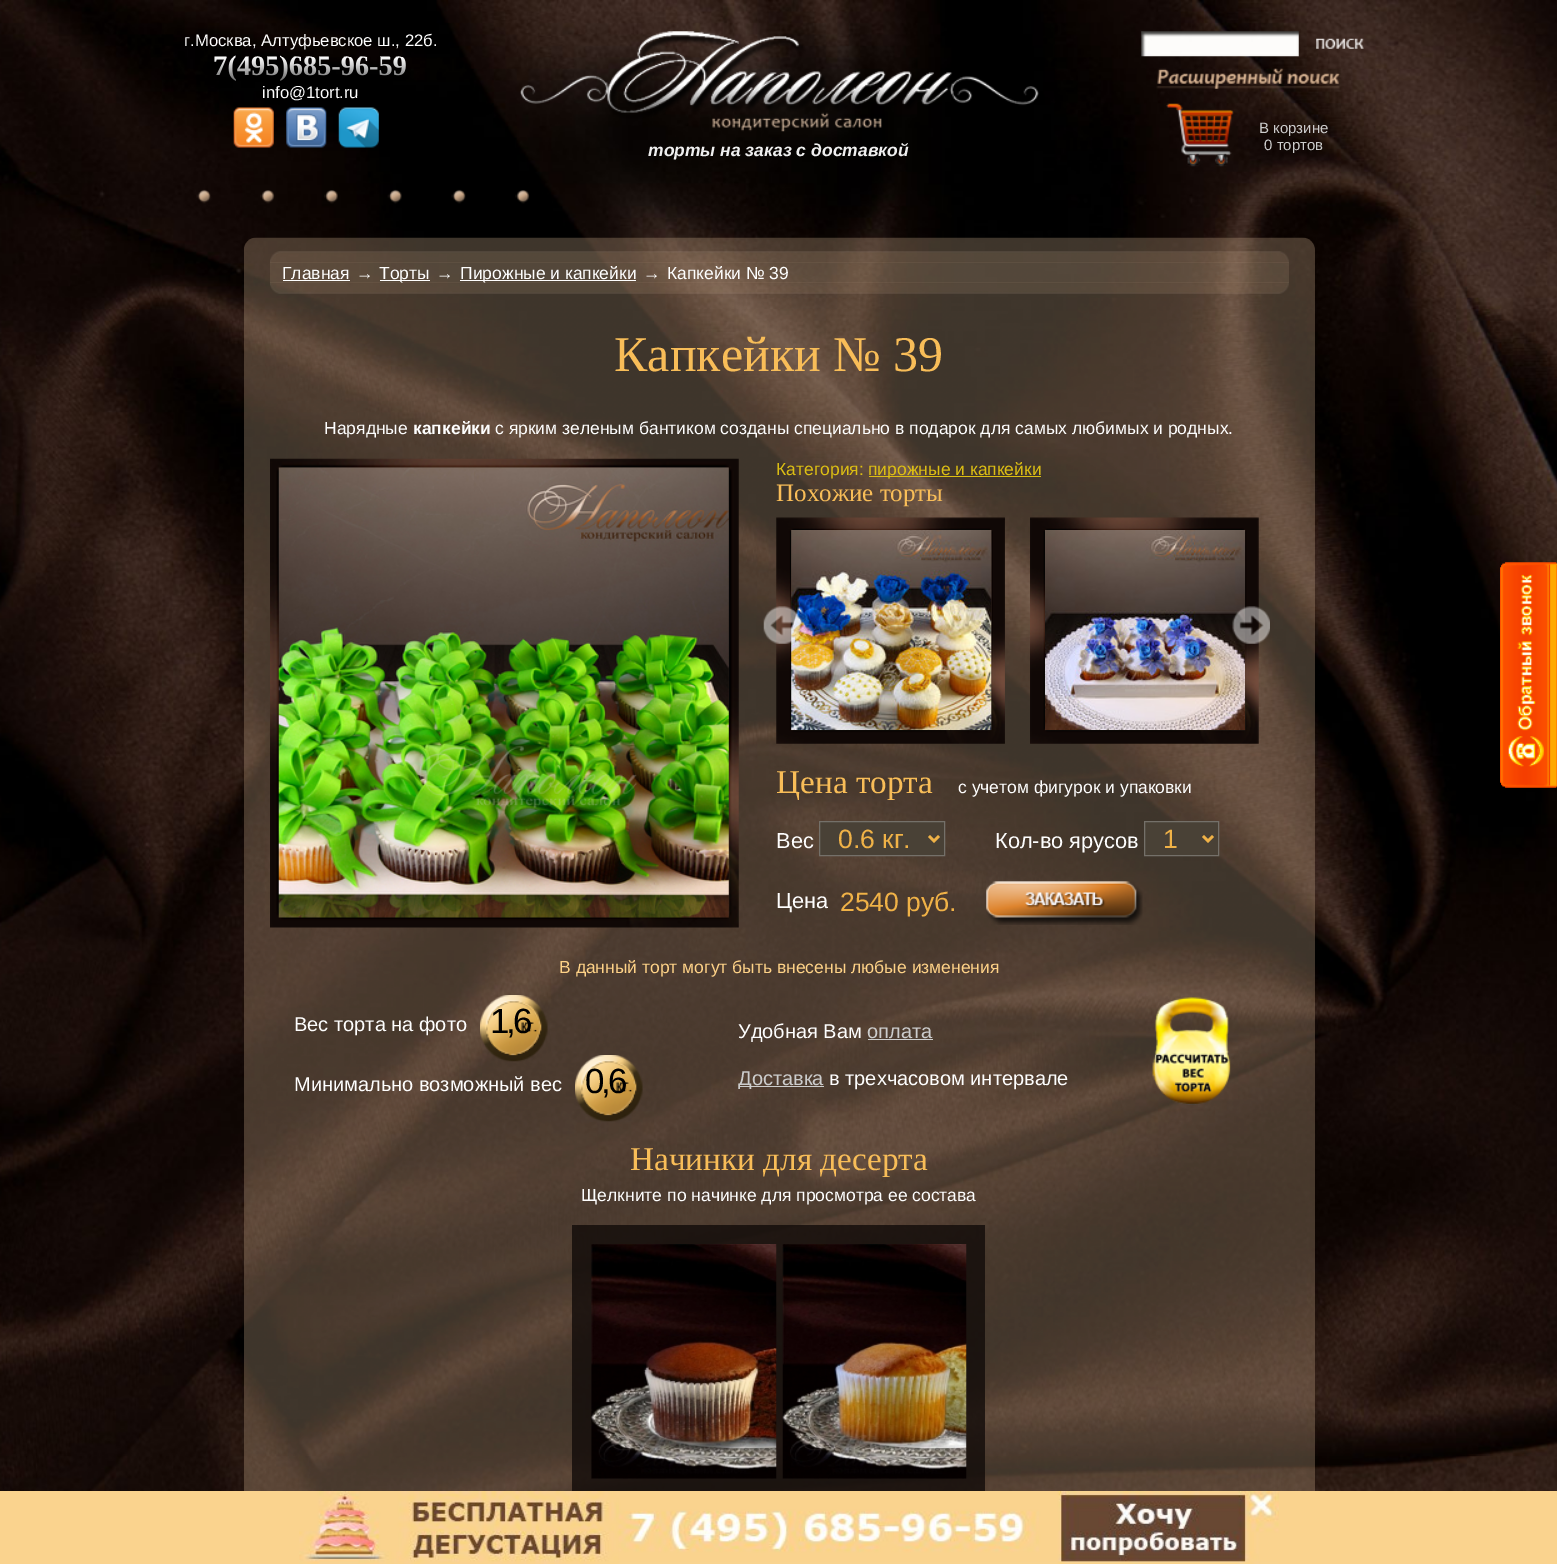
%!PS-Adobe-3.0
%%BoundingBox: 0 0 1557 1564
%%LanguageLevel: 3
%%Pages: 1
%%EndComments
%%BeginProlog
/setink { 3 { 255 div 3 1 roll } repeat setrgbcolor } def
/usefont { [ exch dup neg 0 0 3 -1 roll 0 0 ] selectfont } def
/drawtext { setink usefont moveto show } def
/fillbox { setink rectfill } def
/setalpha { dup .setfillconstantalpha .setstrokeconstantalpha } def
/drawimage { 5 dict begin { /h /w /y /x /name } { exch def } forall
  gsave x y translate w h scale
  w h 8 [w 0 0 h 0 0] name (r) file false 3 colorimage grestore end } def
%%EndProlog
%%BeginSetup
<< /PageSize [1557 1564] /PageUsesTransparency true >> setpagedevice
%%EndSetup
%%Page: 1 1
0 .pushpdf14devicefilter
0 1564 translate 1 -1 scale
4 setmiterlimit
0 0 1557 1564 255 255 255 fillbox
(assets/img1.rgb) 0 0 1557 1491 drawimage
(г.Москва, Алтуфьевское ш., 22б.) 184 46 /LiberationSans-Regular 16.7 254 254 254 drawtext
(7\(495\)685-96-59) 213 75 /LiberationSerif-Bold 28.25 254 254 254 drawtext
(assets/img2.rgb) 215 57 191 24 drawimage
(info@1tort.ru) 262 98 /LiberationSans-Regular 16.7 254 254 254 drawtext
(assets/img3.rgb) 233 107 41 41 drawimage
(assets/img4.rgb) 286 107 41 41 drawimage
(assets/img5.rgb) 338 107 41 41 drawimage
(assets/img6.rgb) 520 31 519 101 drawimage
(торты на заказ с доставкой) 648 156 /LiberationSans-BoldItalic 17.5 239 239 239 drawtext
(assets/img7.rgb) 1141 31 158 26 drawimage
(assets/img8.rgb) 1316 38 48 11 drawimage
(assets/img9.rgb) 1156 68 184 21 drawimage
(assets/img10.rgb) 1166 103 68 64 drawimage
(В корзине) 1259 133 /LiberationSans-Regular 15 204 204 204 drawtext
(0 тортов) 1264 150 /LiberationSans-Regular 15 204 204 204 drawtext
(assets/img11.rgb) 196 189 15 15 drawimage
(assets/img12.rgb) 260 190 15 14 drawimage
(assets/img13.rgb) 324 190 14 14 drawimage
(assets/img14.rgb) 387 189 15 15 drawimage
(assets/img15.rgb) 451 189 15 15 drawimage
(assets/img16.rgb) 515 190 15 14 drawimage
(assets/img17.rgb) 244 237 1071 1254 drawimage
0.14 setalpha
270 262 1019 21 213 184 149 fillbox
1 setalpha
(assets/img18.rgb) 270 251 1019 12 drawimage
(Главная) 282 279 /LiberationSans-Regular 17.5 254 254 254 drawtext
283 280 67 1 255 255 255 fillbox
(→) 356 279 /LiberationSans-Regular 17.5 254 254 254 drawtext
380 280 50 1 255 255 255 fillbox
(Торты) 379 279 /LiberationSans-Regular 17.5 254 254 254 drawtext
(→) 436 279 /LiberationSans-Regular 17.5 254 254 254 drawtext
460 280 176 1 255 255 255 fillbox
(Пирожные и капкейки) 460 279 /LiberationSans-Regular 17.5 254 254 254 drawtext
(→) 643 279 /LiberationSans-Regular 17.5 254 254 254 drawtext
(Капкейки № 39) 667 279 /LiberationSans-Regular 17.5 254 254 254 drawtext
(assets/img19.rgb) 270 282 1019 12 drawimage
(Капкейки № 39) 614 371 /LiberationSerif-Regular 50 248 189 88 drawtext
(Нарядные) 324 434 /LiberationSans-Regular 17.5 254 254 254 drawtext
(капкейки) 413 434 /LiberationSans-Bold 17.5 254 254 254 drawtext
(с ярким зеленым бантиком созданы специально в подарок для самых любимых и родных.) 495 434 /LiberationSans-Regular 17.5 254 254 254 drawtext
(assets/img20.rgb) 270 458 469 470 drawimage
(assets/img21.rgb) 278 467 451 451 drawimage
(Категория:) 776 475 /LiberationSans-Regular 17.5 220 190 19 drawtext
869 476 172 1 220 190 19 fillbox
(пирожные и капкейки) 868 475 /LiberationSans-Regular 17.5 220 190 19 drawtext
(Похожие торты) 776 501 /LiberationSerif-Regular 25 248 189 88 drawtext
(assets/img22.rgb) 776 517 229 227 drawimage
(assets/img23.rgb) 791 530 201 200 drawimage
(assets/img24.rgb) 1030 517 229 227 drawimage
(assets/img25.rgb) 1045 530 200 200 drawimage
(assets/img26.rgb) 763 606 39 38 drawimage
(assets/img27.rgb) 1232 606 38 38 drawimage
(Цена торта) 776 793 /LiberationSerif-Regular 33.25 248 189 88 drawtext
(с учетом фигурок и упаковки) 958 793 /LiberationSans-Regular 17.5 254 254 254 drawtext
(Вес) 776 848 /LiberationSans-Regular 21.75 254 254 254 drawtext
73 65 54 setink
819.5 821.5 moveto 944.5 821.5 lineto 944.5 855.5 lineto 819.5 855.5 lineto closepath gsave fill grestore
116 112 105 setink
stroke
240 178 71 setink
2.5 setlinewidth
929 836 moveto 934 841 lineto 939 836 lineto stroke
(0.6 кг.) 838 848 /LiberationSans-Regular 26.5 240 178 71 drawtext
(Кол-во ярусов) 995 848 /LiberationSans-Regular 21.75 254 254 254 drawtext
73 65 54 setink
1144.5 821.5 moveto 1218.5 821.5 lineto 1218.5 855.5 lineto 1144.5 855.5 lineto closepath gsave fill grestore
116 112 105 setink
1 setlinewidth
stroke
240 178 71 setink
2.5 setlinewidth
1203 836 moveto 1208 841 lineto 1213 836 lineto stroke
(1) 1163 848 /LiberationSans-Regular 26.5 240 178 71 drawtext
(Цена) 776 908 /LiberationSans-Regular 21.75 254 254 254 drawtext
(2540 руб.) 840 911 /LiberationSans-Regular 26.5 240 178 71 drawtext
(assets/img28.rgb) 986 881 157 44 drawimage
(В данный торт могут быть внесены любые изменения) 559 973 /LiberationSans-Regular 17.5 254 210 135 drawtext
(Вес торта на фото) 294 1031 /LiberationSans-Regular 20 254 254 254 drawtext
(assets/img29.rgb) 480 995 68 67 drawimage
/LiberationSans-Regular 35 usefont
0 0 0 setink
490 1033 moveto -3 0 (1,6) ashow
(Минимально возможный вес) 294 1091 /LiberationSans-Regular 20 254 254 254 drawtext
(assets/img30.rgb) 575 1055 68 67 drawimage
/LiberationSans-Regular 35 usefont
0 0 0 setink
585 1093 moveto -3 0 (0,6) ashow
(Удобная Вам) 738 1038 /LiberationSans-Regular 20 254 254 254 drawtext
(оплата) 867 1038 /LiberationSans-Regular 20 204 204 204 drawtext
868 1039 65 1 204 204 204 fillbox
739 1086 85 1 204 204 204 fillbox
(Доставка) 738 1085 /LiberationSans-Regular 20 204 204 204 drawtext
(в трехчасовом интервале) 829 1085 /LiberationSans-Regular 20 254 254 254 drawtext
(assets/img31.rgb) 1152 997 79 108 drawimage
(Начинки для десерта) 630 1170 /LiberationSerif-Regular 33.25 248 189 88 drawtext
(Щелкните по начинке для просмотра ее состава) 581 1201 /LiberationSans-Regular 17.5 254 254 254 drawtext
0.79 setalpha
572 1225 413 266 16 10 8 fillbox
1 setalpha
(assets/img32.rgb) 591 1244 186 235 drawimage
(assets/img33.rgb) 782 1244 185 235 drawimage
(assets/img34.rgb) 1500 562 57 226 drawimage
(assets/img35.rgb) 1500 562 57 226 drawimage
0 1491 1557 73 250 211 142 fillbox
(assets/img36.rgb) 299 1491 980 73 drawimage
.poppdf14devicefilter showpage
%%EOF
